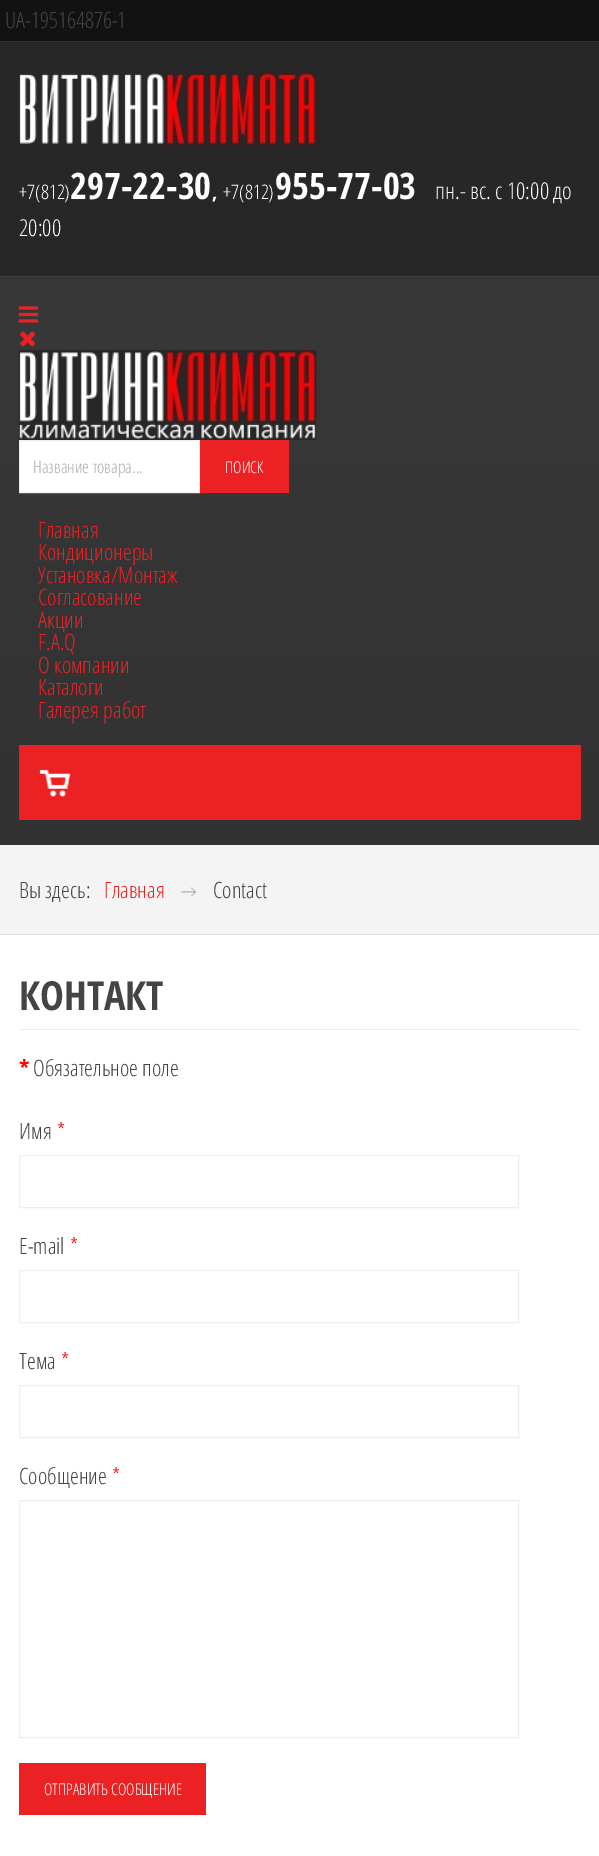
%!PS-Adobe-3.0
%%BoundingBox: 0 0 599 1856
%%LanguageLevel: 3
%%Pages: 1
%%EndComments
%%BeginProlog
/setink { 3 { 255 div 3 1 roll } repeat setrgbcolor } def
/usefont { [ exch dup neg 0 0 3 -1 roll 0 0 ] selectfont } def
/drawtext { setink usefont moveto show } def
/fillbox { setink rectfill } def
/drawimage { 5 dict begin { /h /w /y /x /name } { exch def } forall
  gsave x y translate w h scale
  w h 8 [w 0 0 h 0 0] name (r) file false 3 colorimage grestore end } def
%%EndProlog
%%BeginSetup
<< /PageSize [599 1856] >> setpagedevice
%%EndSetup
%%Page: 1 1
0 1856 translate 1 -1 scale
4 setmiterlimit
0 0 599 1856 18 18 18 fillbox
(UA-195164876-1) 5 28 /OpenSansCondensed-Light 22.5 68 68 68 drawtext
0 935 599 921 255 255 255 fillbox
0 42 599 234 39 39 39 fillbox
0 41 599 1 47 47 47 fillbox
(assets/img1.rgb) 19 71 298 75 drawimage
(+7\(812\)) 19 199 /OpenSansCondensed-Light 20 255 255 255 drawtext
(297-22-30) 70 199 /OpenSansCondensed-Bold 36.5 255 255 255 drawtext
(,) 212 199 /OpenSansCondensed-Bold 20 255 255 255 drawtext
(+7\(812\)) 223 199 /OpenSansCondensed-Light 20 255 255 255 drawtext
(955-77-03) 275 199 /OpenSansCondensed-Bold 36.5 255 255 255 drawtext
(пн.- вс. с 10:00 до) 435 199 /OpenSansCondensed-Light 23.25 255 255 255 drawtext
(20:00) 19 236 /OpenSansCondensed-Light 23.25 255 255 255 drawtext
0 277 599 1 54 54 54 fillbox
gsave 0 278 moveto 599 278 lineto 599 845 lineto 0 845 lineto closepath clip newpath
<< /ShadingType 2 /ColorSpace /DeviceRGB /Coords [300 277 300 845] /Extend [true true] /Function << /FunctionType 2 /Domain [0 1] /C0 [0.22 0.22 0.22] /C1 [0.196 0.196 0.196] /N 1 >> >> shfill grestore
0 276 599 1 62 62 62 fillbox
(assets/img2.rgb) 18 306 21 17 drawimage
(assets/img3.rgb) 20 331 15 16 drawimage
(assets/img4.rgb) 18 350 299 90 drawimage
255 255 255 setink
19.5 440.5 moveto 199.5 440.5 lineto 199.5 492.5 lineto 19.5 492.5 lineto closepath gsave fill grestore
238 238 238 setink
stroke
(Название товара...) 33 473 /OpenSansCondensed-Light 17.5 172 171 171 drawtext
200 440 89 53 236 33 36 fillbox
(ПОИСК) 225 473 /OpenSansCondensed-Light 16.25 255 255 255 drawtext
(Главная) 38 538 /OpenSansCondensed-Light 22.5 236 33 36 drawtext
(Кондиционеры) 38 560 /OpenSansCondensed-Light 22.5 236 33 36 drawtext
(Установка/Монтаж) 38 583 /OpenSansCondensed-Light 22.5 236 33 36 drawtext
(Согласование) 38 605 /OpenSansCondensed-Light 22.5 236 33 36 drawtext
(Акции) 38 628 /OpenSansCondensed-Light 22.5 236 33 36 drawtext
(F.A.Q) 38 650 /OpenSansCondensed-Light 22.5 236 33 36 drawtext
(О компании) 38 673 /OpenSansCondensed-Light 22.5 236 33 36 drawtext
(Каталоги) 38 695 /OpenSansCondensed-Light 22.5 236 33 36 drawtext
(Галерея работ) 38 718 /OpenSansCondensed-Light 22.5 236 33 36 drawtext
19 745 562 75 236 33 36 fillbox
(assets/img5.rgb) 39 769 32 28 drawimage
0 845 599 89 244 244 244 fillbox
(Вы здесь:) 19 898 /OpenSansCondensed-Light 22.5 68 68 68 drawtext
(Главная) 104 898 /OpenSansCondensed-Light 22.5 236 33 36 drawtext
(assets/img6.rgb) 181 887 16 10 drawimage
(Contact) 213 898 /OpenSansCondensed-Light 22.5 68 68 68 drawtext
0 934 599 1 221 221 221 fillbox
19 1029 562 1 238 238 238 fillbox
(КОНТАКТ) 19 1010 /OpenSansCondensed-Bold 40 68 68 68 drawtext
(*) 19 1076 /OpenSansCondensed-Bold 22.5 255 0 0 drawtext
(Обязательное поле) 33 1076 /OpenSansCondensed-Light 22.5 68 68 68 drawtext
(Имя) 19 1139 /OpenSansCondensed-Light 22.5 68 68 68 drawtext
(*) 57 1139 /OpenSansCondensed-Light 22.5 255 0 0 drawtext
238 238 238 setink
19.5 1155.5 499 52 rectstroke
(E-mail) 19 1254 /OpenSansCondensed-Light 22.5 68 68 68 drawtext
(*) 70 1254 /OpenSansCondensed-Light 22.5 255 0 0 drawtext
238 238 238 setink
19.5 1270.5 499 52 rectstroke
(Тема) 19 1369 /OpenSansCondensed-Light 22.5 68 68 68 drawtext
(*) 61 1369 /OpenSansCondensed-Light 22.5 255 0 0 drawtext
238 238 238 setink
19.5 1385.5 499 52 rectstroke
(Сообщение) 19 1484 /OpenSansCondensed-Light 22.5 68 68 68 drawtext
(*) 112 1484 /OpenSansCondensed-Light 22.5 255 0 0 drawtext
238 238 238 setink
19.5 1500.5 499 237 rectstroke
19 1763 187 52 236 33 36 fillbox
(ОТПРАВИТЬ СООБЩЕНИЕ) 44 1795 /OpenSansCondensed-Light 16.25 255 255 255 drawtext
showpage
%%EOF
